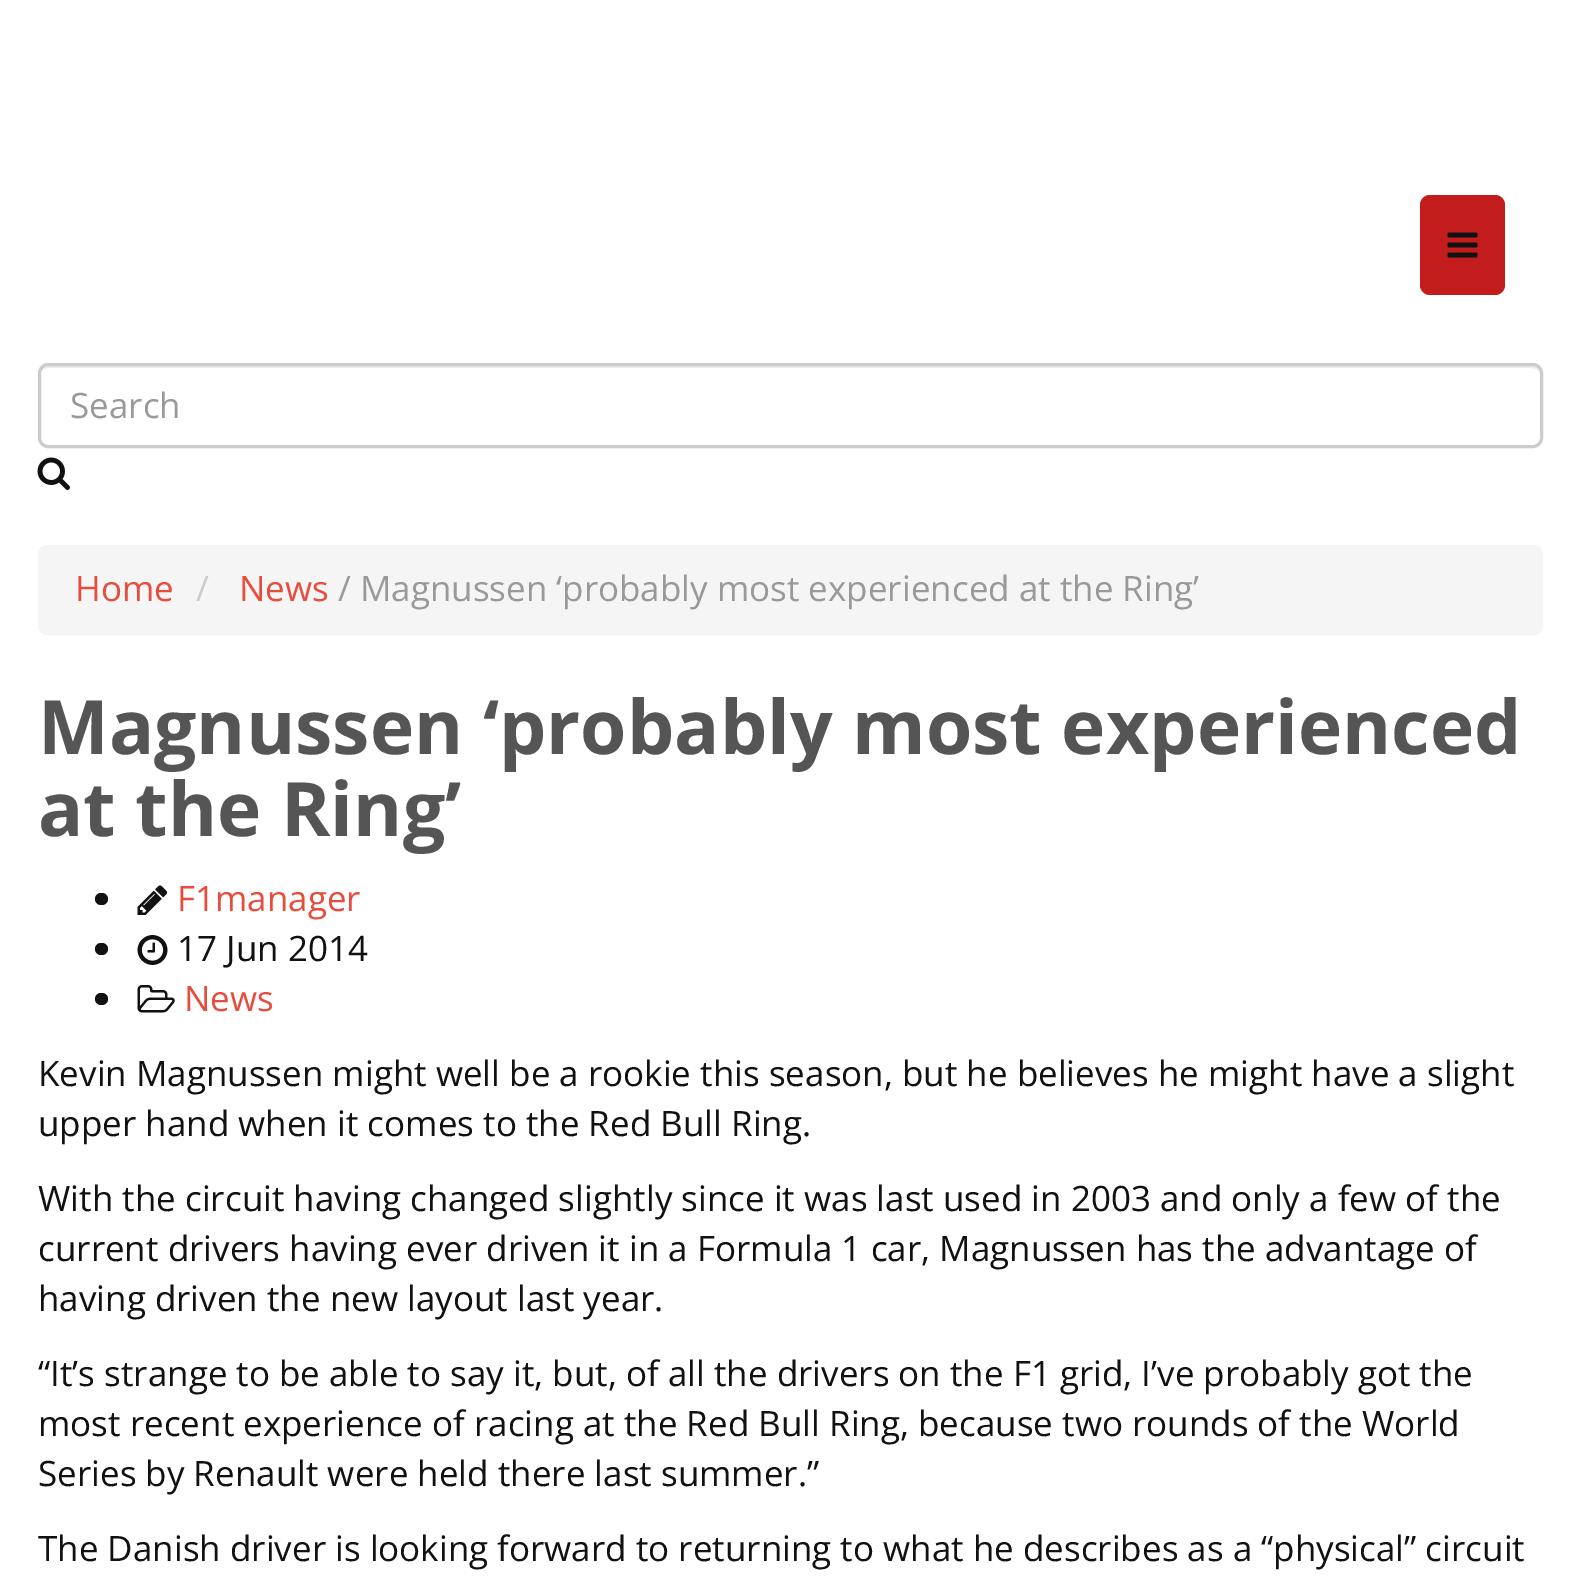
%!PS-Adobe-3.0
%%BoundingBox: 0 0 1578 1586
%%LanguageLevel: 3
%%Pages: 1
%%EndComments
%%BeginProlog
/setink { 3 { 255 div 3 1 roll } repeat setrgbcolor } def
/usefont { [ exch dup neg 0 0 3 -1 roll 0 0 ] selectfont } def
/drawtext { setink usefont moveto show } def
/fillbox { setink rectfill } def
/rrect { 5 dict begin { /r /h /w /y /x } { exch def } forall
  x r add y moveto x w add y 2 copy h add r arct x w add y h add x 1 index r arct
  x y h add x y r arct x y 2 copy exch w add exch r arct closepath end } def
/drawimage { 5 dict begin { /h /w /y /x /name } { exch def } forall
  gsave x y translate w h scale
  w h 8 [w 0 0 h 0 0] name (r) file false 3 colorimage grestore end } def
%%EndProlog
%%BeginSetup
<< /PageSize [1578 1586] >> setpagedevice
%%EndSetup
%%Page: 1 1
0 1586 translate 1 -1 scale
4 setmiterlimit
0 0 1578 1586 255 255 255 fillbox
194 28 28 setink
1420 195 85 100 10 rrect fill
(assets/img1.rgb) 1447 232 31 26 drawimage
236 236 236 setink
48 368 moveto 1532 368 lineto 1537 368 1540 371 1540 375 curveto 1540 370 1538 365 1532 365 curveto 48 365 lineto 42 365 40 370 40 375 curveto 40 371 43 368 48 368 curveto closepath fill
204 204 204 setink
3 setlinewidth
39.5 364.5 1502 82 8.5 rrect stroke
(Search) 70 418 /OpenSans-Regular 35 153 153 153 drawtext
(assets/img2.rgb) 37 457 33 33 drawimage
245 245 245 setink
38 545 1505 90 10 rrect fill
(Home) 75 601 /OpenSans-Regular 35 231 76 60 drawtext
(/) 196 601 /OpenSans-Regular 35 204 204 204 drawtext
(News) 239 601 /OpenSans-Regular 35 231 76 60 drawtext
(/ Magnussen ‘probably most experienced at the Ring’) 338 601 /OpenSans-Regular 35 153 153 153 drawtext
(Magnussen ‘probably most experienced) 38 754 /OpenSans-Bold 75 85 85 85 drawtext
(at the Ring’) 38 836 /OpenSans-Bold 75 85 85 85 drawtext
17 17 17 setink
95 893 13 12 6 rrect fill
(assets/img3.rgb) 137 885 31 30 drawimage
(F1manager) 177 911 /OpenSans-Regular 35 231 76 60 drawtext
17 17 17 setink
95 943 13 12 6 rrect fill
(assets/img4.rgb) 137 935 31 30 drawimage
(17 Jun 2014) 177 961 /OpenSans-Regular 35 17 17 17 drawtext
95 993 13 12 6 rrect fill
(assets/img5.rgb) 137 985 38 28 drawimage
(News) 184 1011 /OpenSans-Regular 35 231 76 60 drawtext
(Kevin Magnussen might well be a rookie this season, but he believes he might have a slight) 38 1086 /OpenSans-Regular 35 17 17 17 drawtext
(upper hand when it comes to the Red Bull Ring.) 38 1136 /OpenSans-Regular 35 17 17 17 drawtext
(With the circuit having changed slightly since it was last used in 2003 and only a few of the) 38 1211 /OpenSans-Regular 35 17 17 17 drawtext
(current drivers having ever driven it in a Formula 1 car, Magnussen has the advantage of) 38 1261 /OpenSans-Regular 35 17 17 17 drawtext
(having driven the new layout last year.) 38 1311 /OpenSans-Regular 35 17 17 17 drawtext
(“It’s strange to be able to say it, but, of all the drivers on the F1 grid, I’ve probably got the) 38 1386 /OpenSans-Regular 35 17 17 17 drawtext
(most recent experience of racing at the Red Bull Ring, because two rounds of the World) 38 1436 /OpenSans-Regular 35 17 17 17 drawtext
(Series by Renault were held there last summer.”) 38 1486 /OpenSans-Regular 35 17 17 17 drawtext
(The Danish driver is looking forward to returning to what he describes as a “physical” circuit) 38 1561 /OpenSans-Regular 35 17 17 17 drawtext
showpage
%%EOF
